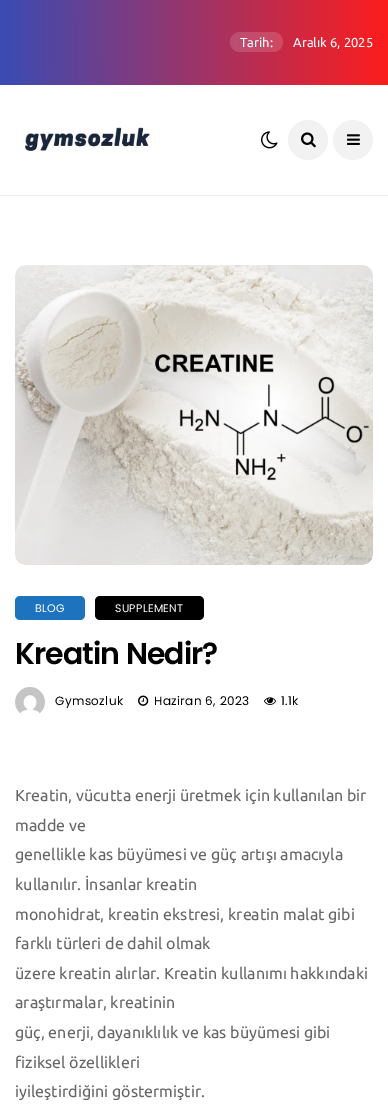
%!PS-Adobe-3.0
%%BoundingBox: 0 0 388 1110
%%LanguageLevel: 3
%%Pages: 1
%%EndComments
%%BeginProlog
/setink { 3 { 255 div 3 1 roll } repeat setrgbcolor } def
/usefont { [ exch dup neg 0 0 3 -1 roll 0 0 ] selectfont } def
/drawtext { setink usefont moveto show } def
/fillbox { setink rectfill } def
/setalpha { dup .setfillconstantalpha .setstrokeconstantalpha } def
/disc { newpath 0 360 arc closepath } def
/rrect { 5 dict begin { /r /h /w /y /x } { exch def } forall
  x r add y moveto x w add y 2 copy h add r arct x w add y h add x 1 index r arct
  x y h add x y r arct x y 2 copy exch w add exch r arct closepath end } def
/drawimage { 5 dict begin { /h /w /y /x /name } { exch def } forall
  gsave x y translate w h scale
  w h 8 [w 0 0 h 0 0] name (r) file false 3 colorimage grestore end } def
%%EndProlog
%%BeginSetup
<< /PageSize [388 1110] /PageUsesTransparency true >> setpagedevice
%%EndSetup
%%Page: 1 1
0 .pushpdf14devicefilter
0 1110 translate 1 -1 scale
4 setmiterlimit
0 0 388 1110 255 255 255 fillbox
gsave 0 0 moveto 388 0 lineto 388 85 lineto 0 85 lineto closepath clip newpath
<< /ShadingType 2 /ColorSpace /DeviceRGB /Coords [0 43 388 42] /Extend [true true] /Function << /FunctionType 2 /Domain [0 1] /C0 [0.227 0.298 0.706] /C1 [0.992 0.114 0.114] /N 1 >> >> shfill grestore
0.15 setalpha
230 32 53 20 10 rrect fill
1 setalpha
(Tarih:) 240 47 /Ubuntu-Regular 13 255 255 255 drawtext
(Aralık 6, 2025) 293 47 /Ubuntu-Regular 13 255 255 255 drawtext
0 195 388 1 238 238 238 fillbox
(assets/img1.rgb) 25 127 125 24 drawimage
(assets/img2.rgb) 261 131 17 18 drawimage
242 242 242 setink
308 140 20 disc fill
(assets/img3.rgb) 301 132 15 16 drawimage
353 140 20 disc fill
(assets/img4.rgb) 347 134 13 11 drawimage
(assets/img5.rgb) 15 265 358 300 drawimage
30 115 190 setink
15 596 70 24 5 rrect fill
/Poppins-Regular 11 usefont
255 255 255 setink
35 612 moveto 0.25 0 (BLOG) ashow
0 0 0 setink
95 596 109 24 5 rrect fill
255 255 255 setink
115 612 moveto 0.25 0 (SUPPLEMENT) ashow
/Poppins-SemiBold 30 usefont
0 0 0 setink
15 664 moveto -0.9 0 (Kreatin Nedir?) ashow
(assets/img6.rgb) 15 687 30 28 drawimage
/Poppins-Regular 12 usefont
55 705 moveto 0.4 0 (Gymsozluk) ashow
(assets/img7.rgb) 138 695 11 11 drawimage
154 705 moveto 0.4 0 (Haziran 6, 2023) ashow
(assets/img8.rgb) 264 697 12 8 drawimage
281 705 moveto 0.4 0 (1.1k) ashow
(Kreatin, vücutta enerji üretmek için kullanılan bir) 15 801 /Ubuntu-Regular 16 102 102 102 drawtext
(madde ve) 15 831 /Ubuntu-Regular 16 102 102 102 drawtext
(genellikle kas büyümesi ve güç artışı amacıyla) 15 860 /Ubuntu-Regular 16 102 102 102 drawtext
(kullanılır. İnsanlar kreatin) 15 890 /Ubuntu-Regular 16 102 102 102 drawtext
(monohidrat, kreatin ekstresi, kreatin malat gibi) 15 920 /Ubuntu-Regular 16 102 102 102 drawtext
(farklı türleri de dahil olmak) 15 949 /Ubuntu-Regular 16 102 102 102 drawtext
(üzere kreatin alırlar. Kreatin kullanımı hakkındaki) 15 979 /Ubuntu-Regular 16 102 102 102 drawtext
(araştırmalar, kreatinin) 15 1008 /Ubuntu-Regular 16 102 102 102 drawtext
(güç, enerji, dayanıklılık ve kas büyümesi gibi) 15 1038 /Ubuntu-Regular 16 102 102 102 drawtext
(fiziksel özellikleri) 15 1068 /Ubuntu-Regular 16 102 102 102 drawtext
(iyileştirdiğini göstermiştir.) 15 1097 /Ubuntu-Regular 16 102 102 102 drawtext
.poppdf14devicefilter showpage
%%EOF
